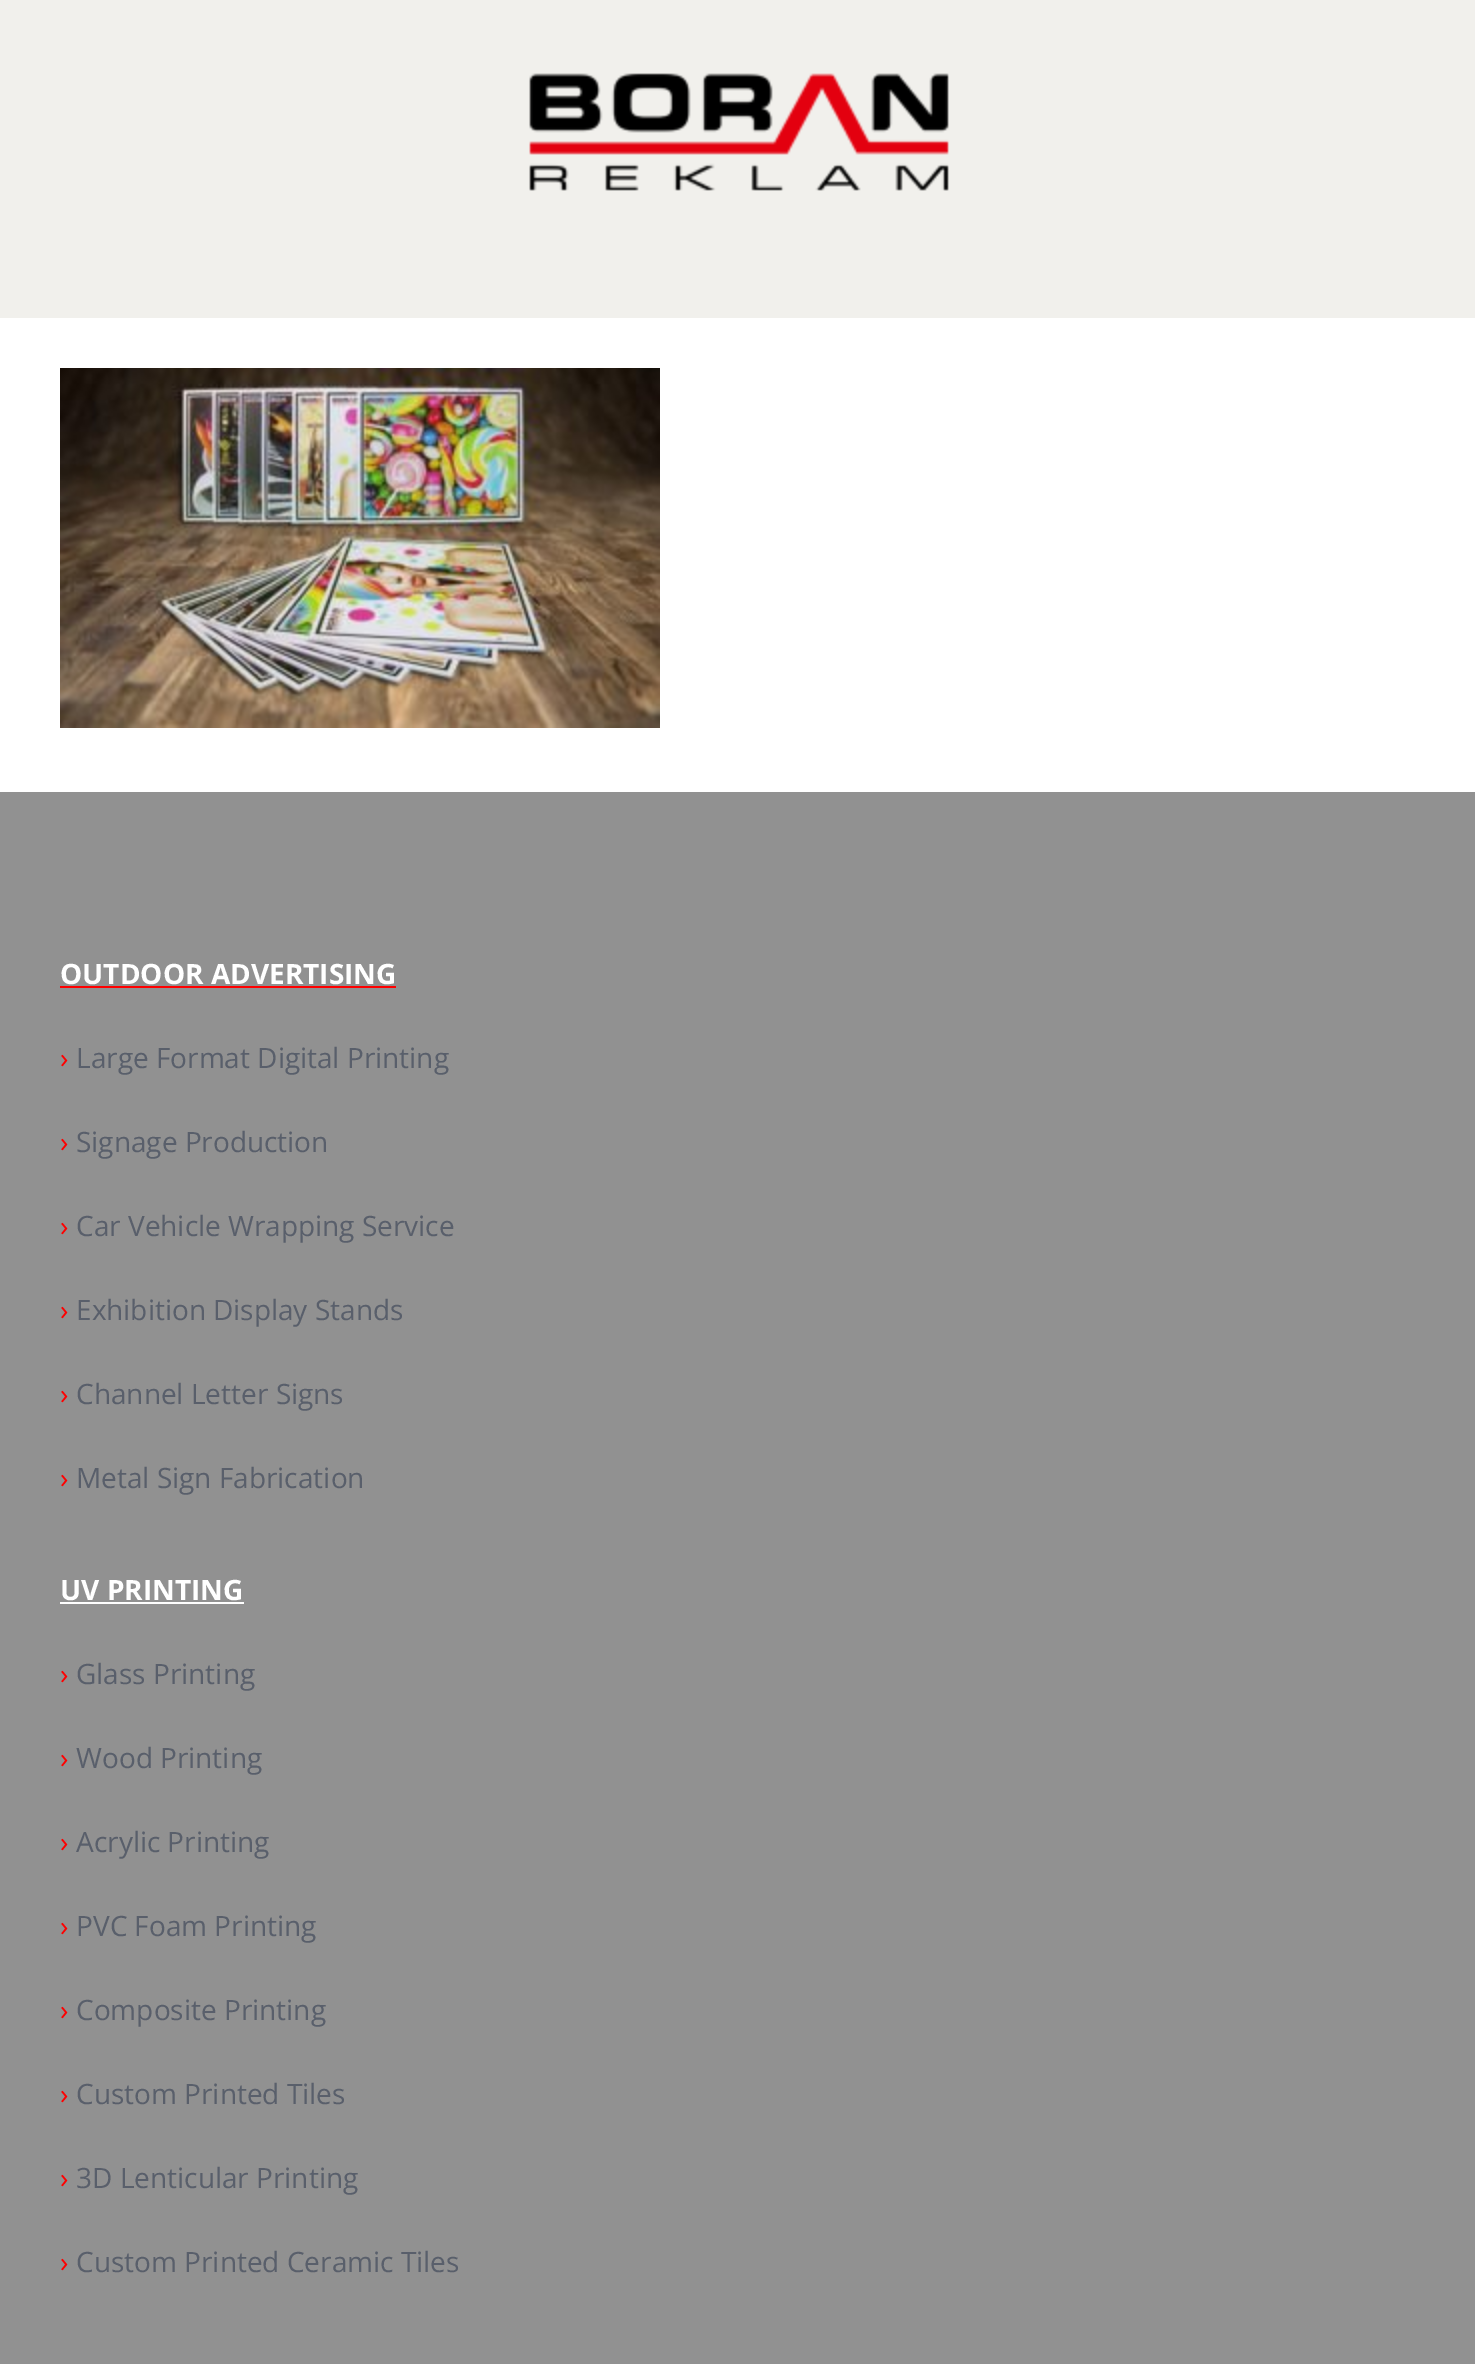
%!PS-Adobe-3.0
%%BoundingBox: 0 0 1475 2364
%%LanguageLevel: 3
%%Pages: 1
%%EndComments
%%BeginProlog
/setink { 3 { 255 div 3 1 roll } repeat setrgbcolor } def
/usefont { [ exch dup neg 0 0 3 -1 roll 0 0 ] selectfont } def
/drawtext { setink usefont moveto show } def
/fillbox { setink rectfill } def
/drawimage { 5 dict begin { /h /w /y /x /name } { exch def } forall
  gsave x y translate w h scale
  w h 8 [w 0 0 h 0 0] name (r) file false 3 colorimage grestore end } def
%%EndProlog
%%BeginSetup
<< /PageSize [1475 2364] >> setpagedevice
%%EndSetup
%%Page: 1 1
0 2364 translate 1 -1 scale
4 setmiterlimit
0 0 1475 2364 255 255 255 fillbox
0 0 1475 318 241 240 236 fillbox
(assets/img1.rgb) 529 73 420 118 drawimage
(assets/img2.rgb) 60 368 600 360 drawimage
0 792 1475 1572 145 145 145 fillbox
(OUTDOOR ADVERTISING) 60 984 /OpenSans-Bold 28 255 255 255 drawtext
60 986 336 2 255 0 0 fillbox
(›) 60 1068 /OpenSans-Regular 28 255 0 0 drawtext
(Large Format Digital Printing) 76 1068 /OpenSans-Regular 28 89 95 107 drawtext
(›) 60 1152 /OpenSans-Regular 28 255 0 0 drawtext
(Signage Production) 76 1152 /OpenSans-Regular 28 89 95 107 drawtext
(›) 60 1236 /OpenSans-Regular 28 255 0 0 drawtext
(Car Vehicle Wrapping Service) 76 1236 /OpenSans-Regular 28 89 95 107 drawtext
(›) 60 1320 /OpenSans-Regular 28 255 0 0 drawtext
(Exhibition Display Stands) 76 1320 /OpenSans-Regular 28 89 95 107 drawtext
(›) 60 1404 /OpenSans-Regular 28 255 0 0 drawtext
(Channel Letter Signs) 76 1404 /OpenSans-Regular 28 89 95 107 drawtext
(›) 60 1488 /OpenSans-Regular 28 255 0 0 drawtext
(Metal Sign Fabrication) 76 1488 /OpenSans-Regular 28 89 95 107 drawtext
(UV PRINTING) 60 1600 /OpenSans-Bold 28 255 255 255 drawtext
60 1602 184 2 255 255 255 fillbox
(›) 60 1684 /OpenSans-Regular 28 255 0 0 drawtext
(Glass Printing) 76 1684 /OpenSans-Regular 28 89 95 107 drawtext
(›) 60 1768 /OpenSans-Regular 28 255 0 0 drawtext
(Wood Printing) 76 1768 /OpenSans-Regular 28 89 95 107 drawtext
(›) 60 1852 /OpenSans-Regular 28 255 0 0 drawtext
(Acrylic Printing) 76 1852 /OpenSans-Regular 28 89 95 107 drawtext
(›) 60 1936 /OpenSans-Regular 28 255 0 0 drawtext
(PVC Foam Printing) 76 1936 /OpenSans-Regular 28 89 95 107 drawtext
(›) 60 2020 /OpenSans-Regular 28 255 0 0 drawtext
(Composite Printing) 76 2020 /OpenSans-Regular 28 89 95 107 drawtext
(›) 60 2104 /OpenSans-Regular 28 255 0 0 drawtext
(Custom Printed Tiles) 76 2104 /OpenSans-Regular 28 89 95 107 drawtext
(›) 60 2188 /OpenSans-Regular 28 255 0 0 drawtext
(3D Lenticular Printing) 76 2188 /OpenSans-Regular 28 89 95 107 drawtext
(›) 60 2272 /OpenSans-Regular 28 255 0 0 drawtext
(Custom Printed Ceramic Tiles) 76 2272 /OpenSans-Regular 28 89 95 107 drawtext
showpage
%%EOF
